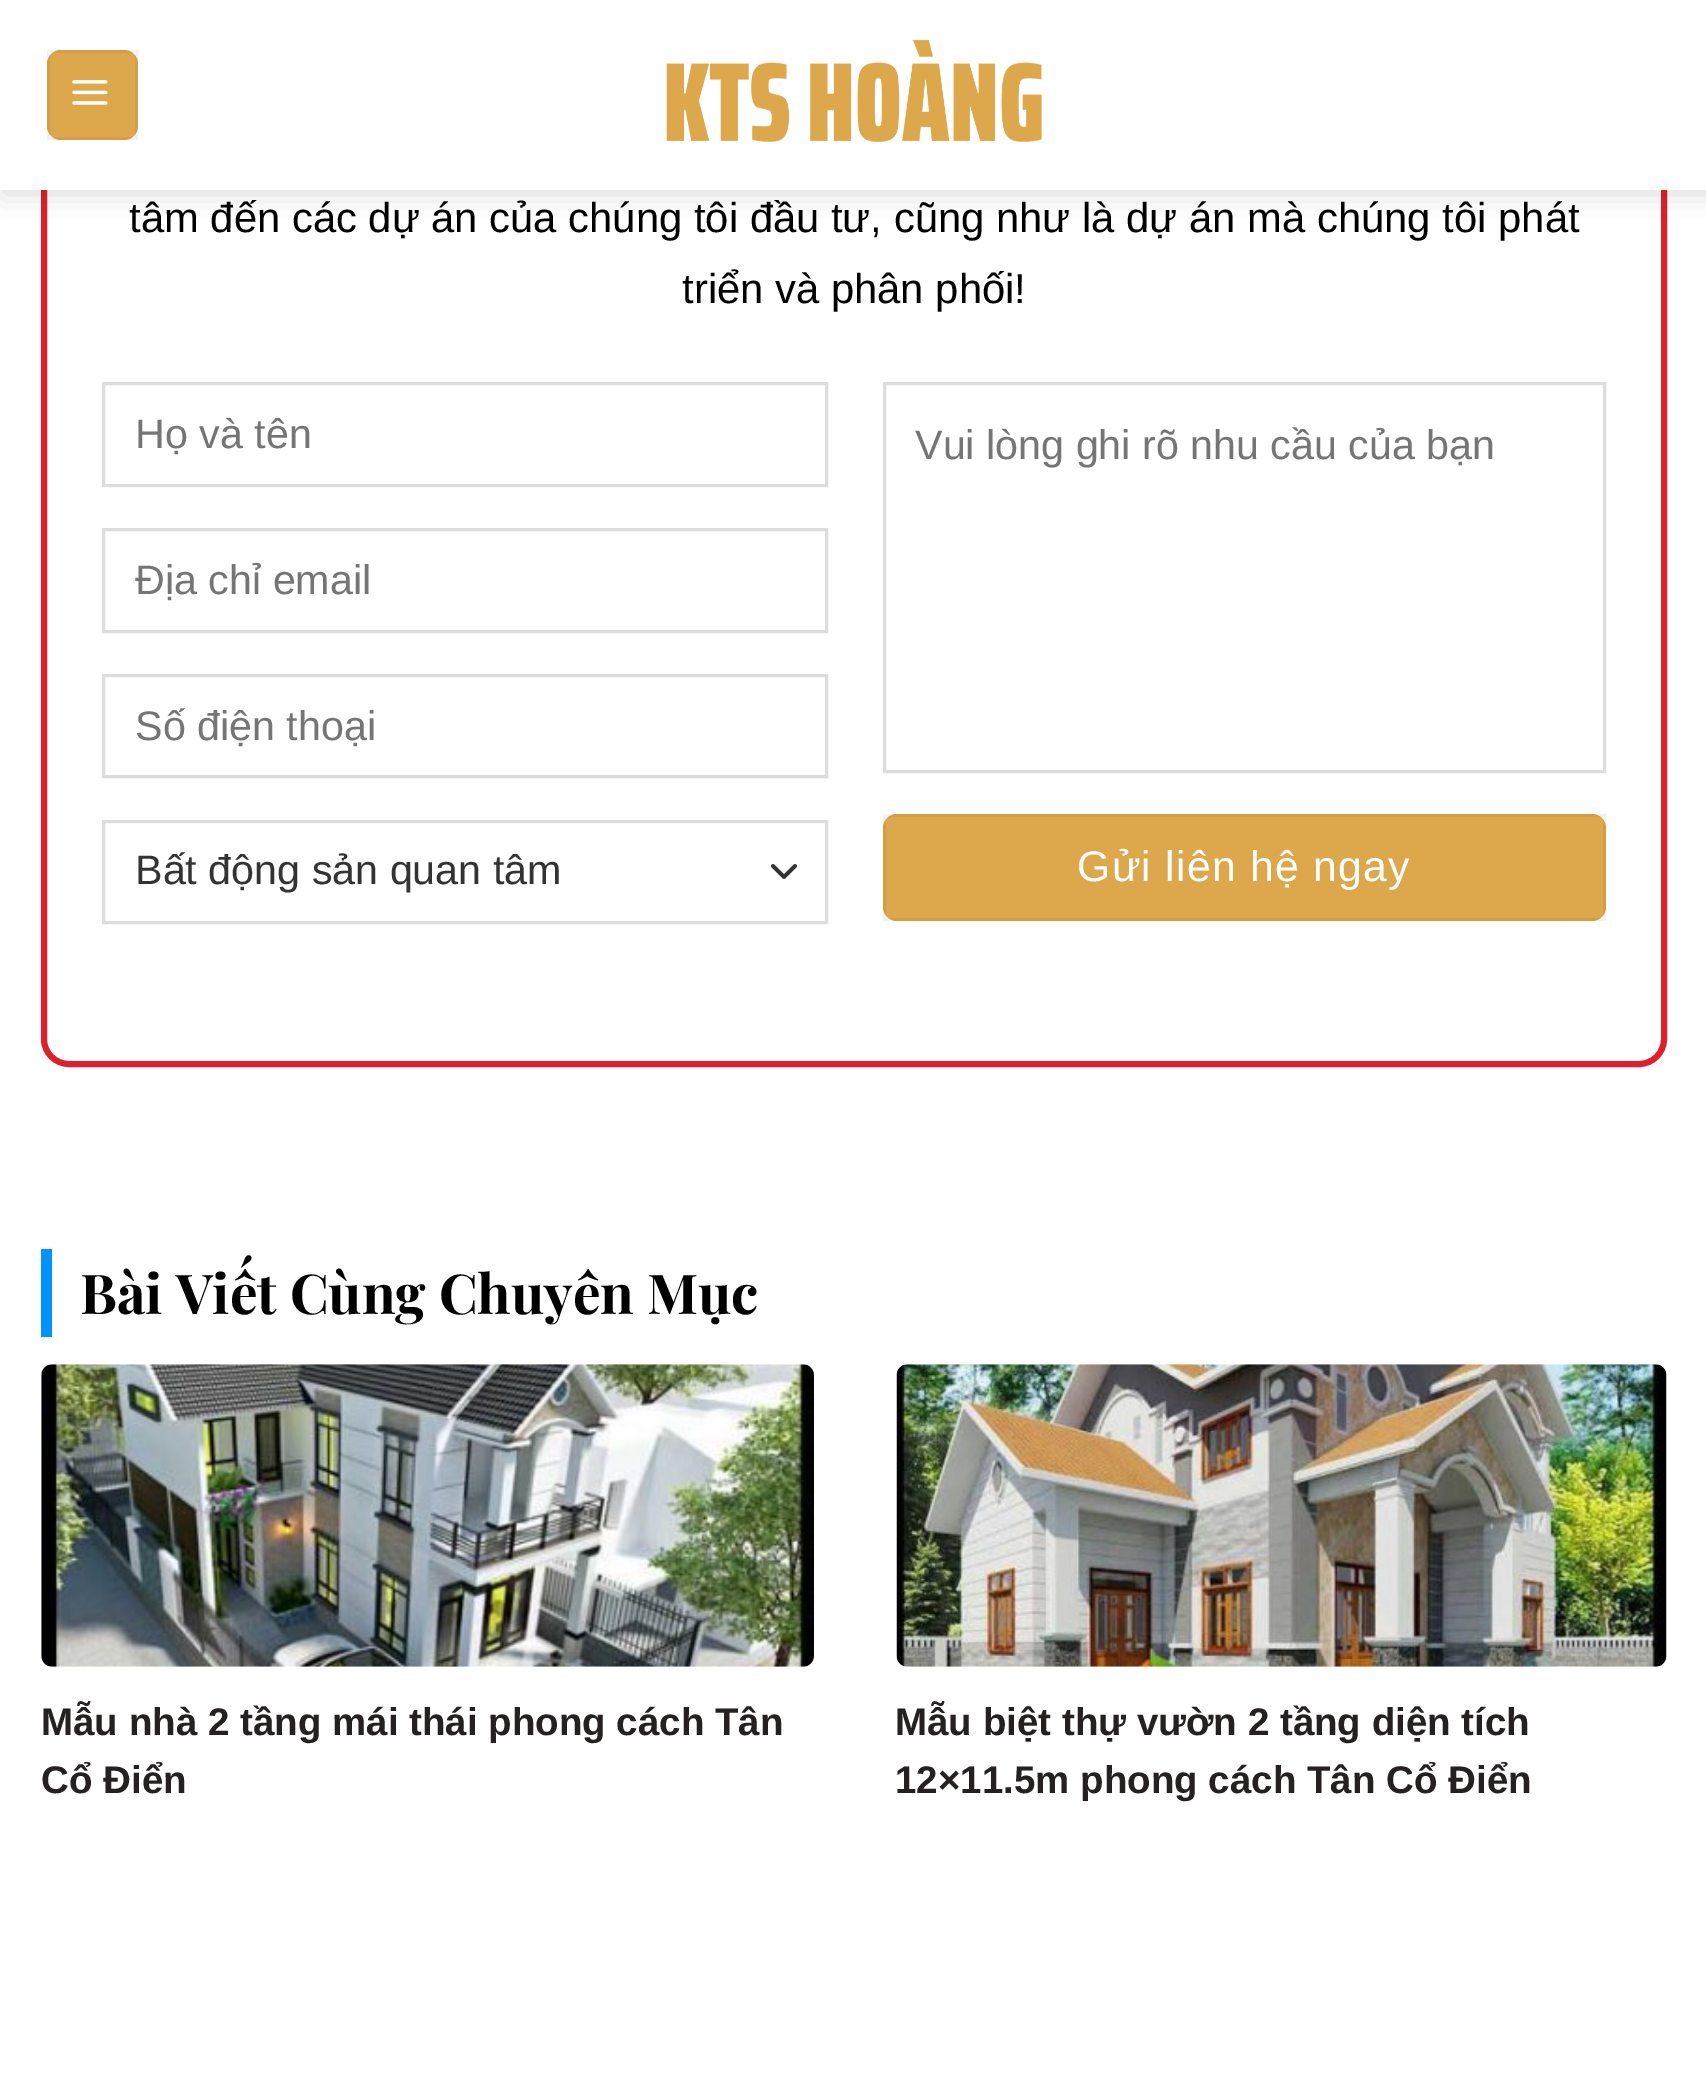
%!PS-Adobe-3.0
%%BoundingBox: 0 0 1706 2073
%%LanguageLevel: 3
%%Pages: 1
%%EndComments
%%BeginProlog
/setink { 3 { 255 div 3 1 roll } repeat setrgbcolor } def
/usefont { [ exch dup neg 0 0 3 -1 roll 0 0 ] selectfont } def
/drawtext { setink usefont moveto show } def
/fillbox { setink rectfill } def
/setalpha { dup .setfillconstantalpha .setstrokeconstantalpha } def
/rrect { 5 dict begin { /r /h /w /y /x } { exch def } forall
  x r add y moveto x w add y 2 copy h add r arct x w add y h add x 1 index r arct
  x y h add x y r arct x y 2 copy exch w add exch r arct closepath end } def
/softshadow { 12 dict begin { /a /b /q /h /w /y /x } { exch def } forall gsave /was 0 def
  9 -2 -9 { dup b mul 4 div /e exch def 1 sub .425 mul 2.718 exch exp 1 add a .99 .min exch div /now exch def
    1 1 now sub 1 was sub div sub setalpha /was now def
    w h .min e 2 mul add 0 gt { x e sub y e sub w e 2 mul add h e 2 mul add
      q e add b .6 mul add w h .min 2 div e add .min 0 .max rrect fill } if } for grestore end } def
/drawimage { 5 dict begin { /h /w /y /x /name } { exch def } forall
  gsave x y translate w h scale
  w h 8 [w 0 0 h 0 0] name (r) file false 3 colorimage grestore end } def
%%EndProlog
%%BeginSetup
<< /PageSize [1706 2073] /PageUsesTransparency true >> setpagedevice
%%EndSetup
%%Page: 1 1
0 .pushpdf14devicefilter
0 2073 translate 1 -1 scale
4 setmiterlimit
0 0 1706 2073 255 255 255 fillbox
221 32 42 setink
6 setlinewidth
44 -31 1620 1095 25 rrect stroke
0 0 0 setink
3 3 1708 190 0 14 0.15 softshadow
0 0 1706 190 255 255 255 fillbox
221 167 76 setink
47 50 91 90 14 rrect fill
0.05 setalpha
0 0 0 setink
3 setlinewidth
48.5 51.5 88 87 rectstroke
1 setalpha
(assets/img1.rgb) 72 80 36 25 drawimage
(assets/img2.rgb) 666 39 376 103 drawimage
(tâm đến các dự án của chúng tôi đầu tư, cũng như là dự án mà chúng tôi phát) 129 232 /LiberationSans-Regular 41.8 0 0 0 drawtext
(triển và phân phối!) 682 303 /LiberationSans-Regular 41.8 0 0 0 drawtext
221 221 221 setink
103.5 383.5 723 102 rectstroke
(Họ và tên) 135 448 /LiberationSans-Regular 41.25 117 117 117 drawtext
221 221 221 setink
103.5 529.5 723 102 rectstroke
(Địa chỉ email) 135 594 /LiberationSans-Regular 41.25 117 117 117 drawtext
221 221 221 setink
103.5 675.5 723 101 rectstroke
(Số điện thoại) 135 740 /LiberationSans-Regular 41.25 117 117 117 drawtext
51 51 51 setink
3.7 setlinewidth
1 setlinecap
1 setlinejoin
773 866 moveto 784 877 lineto 795 866 lineto stroke
221 221 221 setink
3 setlinewidth
0 setlinecap
0 setlinejoin
103.5 821.5 723 101 rectstroke
(Bất động sản quan tâm) 135 884 /LiberationSans-Regular 41.25 51 51 51 drawtext
221 221 221 setink
884.5 383.5 720 388 rectstroke
(Vui lòng ghi rõ nhu cầu của bạn) 915 459 /LiberationSans-Regular 41.25 117 117 117 drawtext
221 167 76 setink
883 814 723 107 14 rrect fill
0.05 setalpha
0 0 0 setink
884.5 815.5 720 104 rectstroke
/LiberationSans-Regular 42.75 usefont
1 setalpha
255 255 255 setink
1077 881 moveto 1.25 0 (Gửi liên hệ ngay) ashow
41 1249 11 88 0 146 255 fillbox
(Bài Viết Cùng Chuyên Mục) 80 1314 /PlayfairDisplay-Bold 55 0 0 0 drawtext
(assets/img3.rgb) 41 1364 773 303 drawimage
(Mẫu nhà 2 tầng mái thái phong cách Tân) 41 1735 /LiberationSans-Bold 38.5 37 33 33 drawtext
(Cổ Điển) 41 1793 /LiberationSans-Bold 38.5 37 33 33 drawtext
(assets/img4.rgb) 896 1364 771 303 drawimage
(Mẫu biệt thự vườn 2 tầng diện tích) 895 1735 /LiberationSans-Bold 38.5 37 33 33 drawtext
(12×11.5m phong cách Tân Cổ Điển) 895 1793 /LiberationSans-Bold 38.5 37 33 33 drawtext
.poppdf14devicefilter showpage
%%EOF
